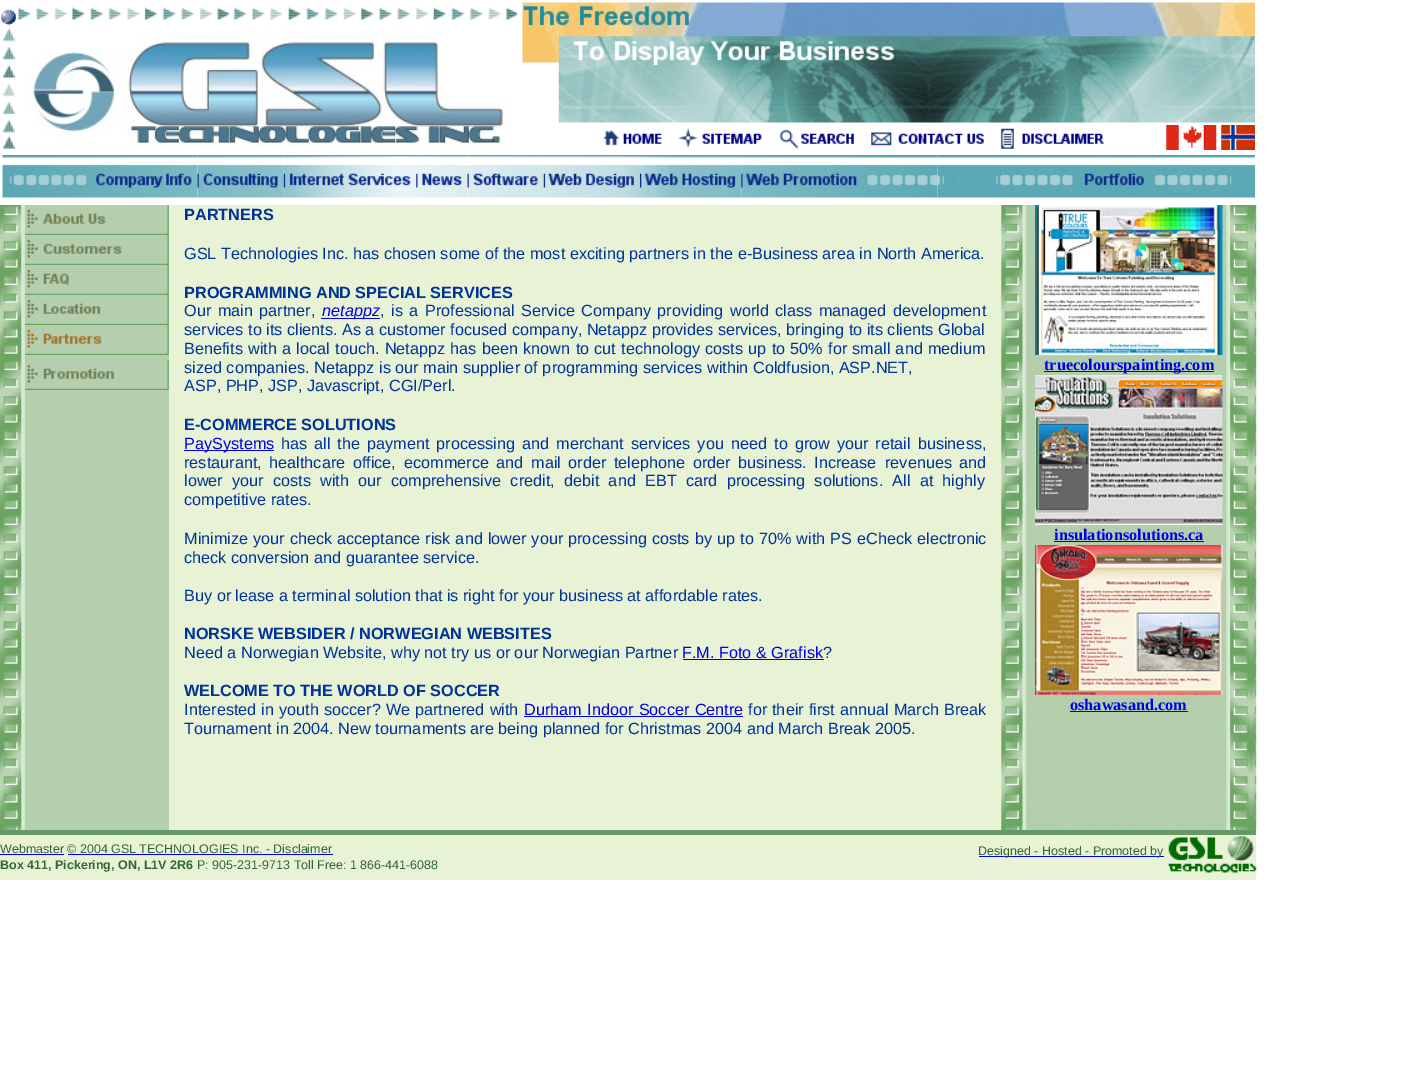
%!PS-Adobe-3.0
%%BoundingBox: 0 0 1407 1090
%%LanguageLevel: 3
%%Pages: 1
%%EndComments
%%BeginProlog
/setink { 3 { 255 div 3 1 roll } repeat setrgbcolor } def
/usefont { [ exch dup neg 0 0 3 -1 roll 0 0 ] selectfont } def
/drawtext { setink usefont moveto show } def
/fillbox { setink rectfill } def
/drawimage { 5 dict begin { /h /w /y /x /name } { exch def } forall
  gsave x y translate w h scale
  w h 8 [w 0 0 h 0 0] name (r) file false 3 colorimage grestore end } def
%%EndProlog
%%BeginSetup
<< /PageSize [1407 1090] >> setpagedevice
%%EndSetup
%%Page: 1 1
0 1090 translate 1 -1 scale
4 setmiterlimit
0 0 1407 1090 255 255 255 fillbox
(assets/img1.rgb) 0 9 17 17 drawimage
(assets/img2.rgb) 16 7 502 13 drawimage
(assets/img3.rgb) 517 2 738 121 drawimage
(assets/img4.rgb) 2 28 14 121 drawimage
(assets/img5.rgb) 28 30 478 120 drawimage
(assets/img6.rgb) 603 130 59 16 drawimage
(assets/img7.rgb) 678 128 84 20 drawimage
(assets/img8.rgb) 779 129 75 20 drawimage
(assets/img9.rgb) 871 129 131 20 drawimage
(assets/img10.rgb) 1001 128 103 21 drawimage
(assets/img11.rgb) 1166 125 51 25 drawimage
(assets/img12.rgb) 1221 125 34 25 drawimage
(assets/img13.rgb) 2 155 196 43 drawimage
(assets/img14.rgb) 197 155 87 43 drawimage
(assets/img15.rgb) 283 155 134 43 drawimage
(assets/img16.rgb) 416 155 52 43 drawimage
(assets/img17.rgb) 467 155 77 43 drawimage
(assets/img18.rgb) 543 155 97 43 drawimage
(assets/img19.rgb) 640 155 102 43 drawimage
(assets/img20.rgb) 741 155 197 43 drawimage
(assets/img21.rgb) 937 155 318 43 drawimage
(assets/img22.rgb) 0 205 25 625 drawimage
25 205 144 625 179 207 173 fillbox
(assets/img23.rgb) 25 205 144 30 drawimage
(assets/img24.rgb) 25 235 144 30 drawimage
(assets/img25.rgb) 25 265 144 30 drawimage
(assets/img26.rgb) 25 295 144 30 drawimage
(assets/img27.rgb) 25 325 144 30 drawimage
(assets/img28.rgb) 25 360 144 30 drawimage
169 205 832 625 232 242 212 fillbox
(PARTNERS) 184 220 /LiberationSans-Bold 16.25 0 51 153 drawtext
(GSL Technologies Inc. has chosen some of the most exciting partners in the e-Business area in North America.) 184 259 /LiberationSans-Regular 16.25 0 51 153 drawtext
(PROGRAMMING AND SPECIAL SERVICES) 184 298 /LiberationSans-Bold 16.25 0 51 153 drawtext
/LiberationSans-Regular 16.25 usefont
184 316 moveto 2 0 32 (Our main partner,) widthshow
321 318 59 1 0 0 238 fillbox
(netappz) 322 316 /LiberationSans-Italic 16.25 0 0 238 drawtext
(,) 380 316 /LiberationSans-Regular 16.25 0 51 153 drawtext
391 316 moveto 2 0 32 (is a Professional Service Company providing world class managed) widthshow
(development) 893 316 /LiberationSans-Regular 16.25 0 51 153 drawtext
(services to its clients. As a customer focused company, Netappz provides services, bringing to its clients Global) 184 335 /LiberationSans-Regular 16.25 0 51 153 drawtext
(Benefits) 184 354 /LiberationSans-Regular 16.25 0 51 153 drawtext
248 354 moveto 0.75 0 32 (with a local touch. Netappz has been known to cut technology) widthshow
705 354 moveto 0.75 0 32 (costs up to 50% for small and medium) widthshow
(sized companies. Netappz is our main supplier of programming services within Coldfusion, ASP.NET,) 184 373 /LiberationSans-Regular 16.25 0 51 153 drawtext
(ASP, PHP, JSP, Javascript, CGI/Perl.) 184 391 /LiberationSans-Regular 16.25 0 51 153 drawtext
(E-COMMERCE SOLUTIONS) 184 430 /LiberationSans-Bold 16.25 0 51 153 drawtext
184 450 90 1 0 0 238 fillbox
(PaySystems) 184 449 /LiberationSans-Regular 16.25 0 0 238 drawtext
0 51 153 setink
281 449 moveto 2.5 0 32 (has all the payment processing and merchant services you need) widthshow
774 449 moveto 2.5 0 32 (to grow your retail business,) widthshow
184 468 moveto 3 0 32 (restaurant, healthcare office,) widthshow
404 468 moveto 3 0 32 (ecommerce and mail order telephone order business. Increase) widthshow
885 468 moveto 3 0 32 (revenues and) widthshow
184 486 moveto 4.75 0 32 (lower your costs with our comprehensive credit,) widthshow
564 486 moveto 4.75 0 32 (debit and EBT card processing solutions. All at highly) widthshow
(competitive rates.) 184 505 /LiberationSans-Regular 16.25 0 51 153 drawtext
(Minimize) 184 544 /LiberationSans-Regular 16.25 0 51 153 drawtext
253 544 moveto 0.5 0 32 (your check acceptance risk and lower your processing costs by) widthshow
717 544 moveto 0.5 0 32 (up to 70% with PS eCheck electronic) widthshow
(check conversion and guarantee service.) 184 563 /LiberationSans-Regular 16.25 0 51 153 drawtext
(Buy or lease a terminal solution that is right for your business at affordable rates.) 184 601 /LiberationSans-Regular 16.25 0 51 153 drawtext
(NORSKE WEBSIDER / NORWEGIAN WEBSITES) 184 639 /LiberationSans-Bold 16.25 0 51 153 drawtext
(Need a Norwegian Website, why not try us or our Norwegian Partner) 184 658 /LiberationSans-Regular 16.25 0 51 153 drawtext
(F.M. Foto & Grafisk) 682 658 /LiberationSans-Regular 16.25 0 0 238 drawtext
683 659 141 1 0 0 238 fillbox
(?) 823 658 /LiberationSans-Regular 16.25 0 51 153 drawtext
(WELCOME TO THE WORLD OF SOCCER) 184 696 /LiberationSans-Bold 16.25 0 51 153 drawtext
/LiberationSans-Regular 16.25 usefont
184 715 moveto 0.5 0 32 (Interested in youth soccer? We partnered with) widthshow
(Durham) 524 715 /LiberationSans-Regular 16.25 0 0 238 drawtext
524 716 219 1 0 0 238 fillbox
587 715 moveto 1 0 32 (Indoor Soccer Centre) widthshow
0 51 153 setink
748 715 moveto 0.5 0 32 (for their first annual March Break) widthshow
(Tournament in 2004. New tournaments are being planned for Christmas 2004 and March Break 2005.) 184 734 /LiberationSans-Regular 16.25 0 51 153 drawtext
(assets/img29.rgb) 1001 205 256 625 drawimage
(assets/img30.rgb) 1035 205 188 150 drawimage
1044 371 170 1 0 0 238 fillbox
(truecolourspainting.com) 1044 370 /LiberationSerif-Bold 16.25 0 0 238 drawtext
(assets/img31.rgb) 1035 375 188 150 drawimage
(insulationsolutions.ca) 1054 540 /LiberationSerif-Bold 16.25 0 0 238 drawtext
1054 541 150 1 0 0 238 fillbox
(assets/img32.rgb) 1035 545 188 150 drawimage
(oshawasand.com) 1070 710 /LiberationSerif-Bold 16.25 0 0 238 drawtext
1070 711 118 1 0 0 238 fillbox
0 830 1256 5 102 153 102 fillbox
0 835 1256 45 232 242 212 fillbox
(Webmaster) 0 853 /LiberationSans-Regular 12.5 51 102 51 drawtext
0 854 64 1 0 0 238 fillbox
(© 2004 GSL TECHNOLOGIES Inc. - Disclaimer) 67 853 /LiberationSans-Regular 12.5 51 102 51 drawtext
68 854 265 1 0 0 238 fillbox
(Box 411, Pickering, ON, L1V 2R6) 0 869 /LiberationSans-Bold 12.5 51 102 51 drawtext
(P: 905-231-9713 Toll Free: 1 866-441-6088) 197 869 /LiberationSans-Regular 12.5 51 102 51 drawtext
979 856 185 1 0 0 238 fillbox
(Designed - Hosted - Promoted by) 978 855 /LiberationSans-Regular 12.5 51 102 51 drawtext
(assets/img33.rgb) 1168 835 89 38 drawimage
showpage
%%EOF
